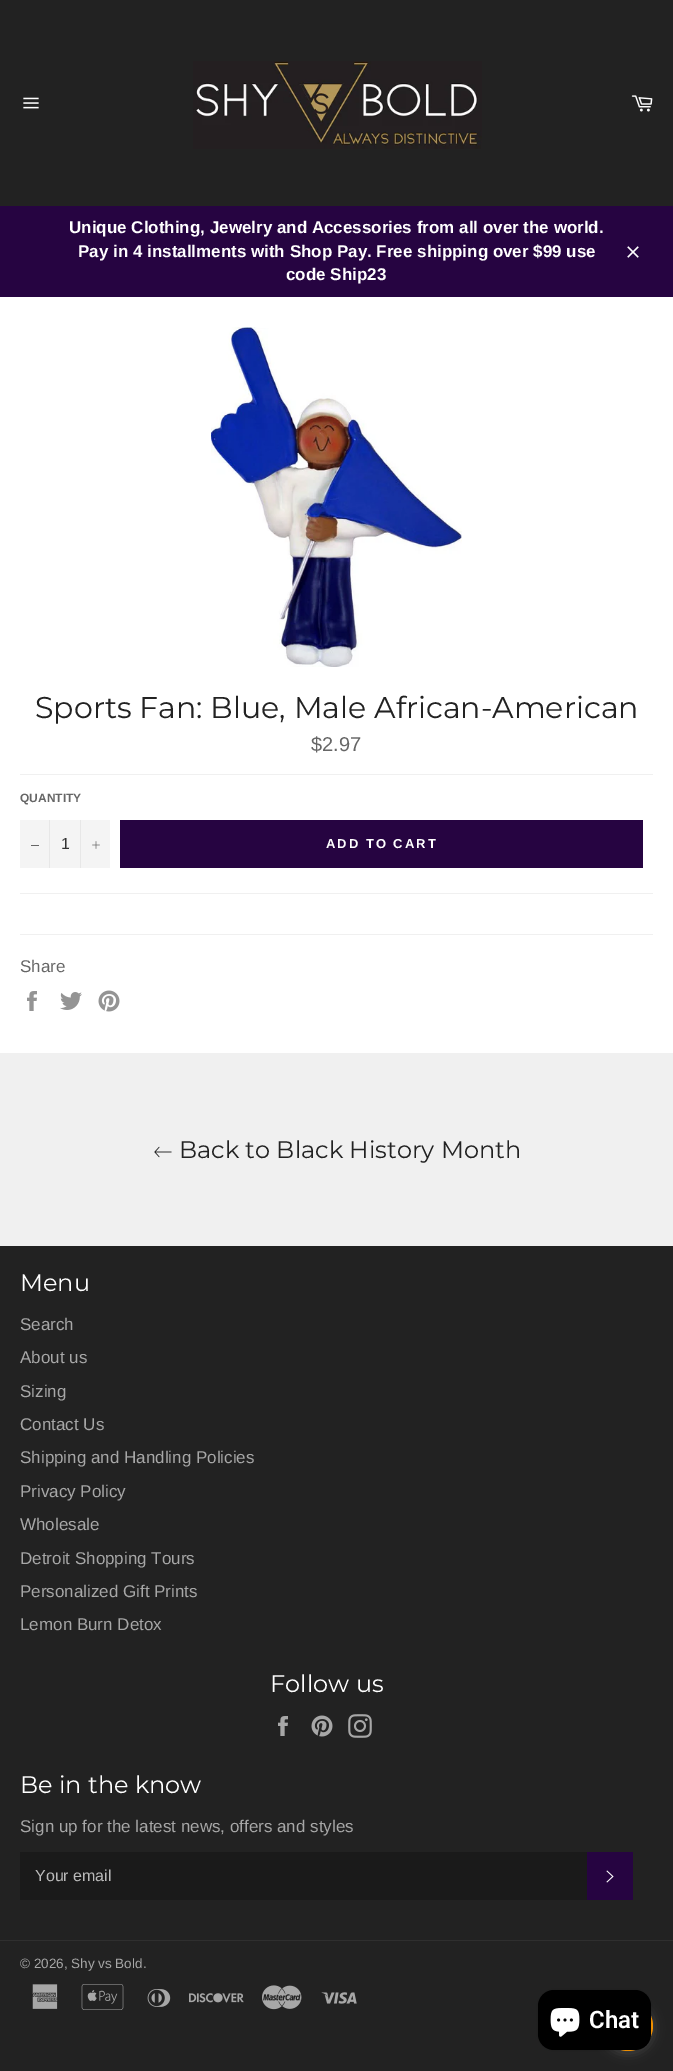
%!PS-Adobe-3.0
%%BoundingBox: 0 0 673 2071
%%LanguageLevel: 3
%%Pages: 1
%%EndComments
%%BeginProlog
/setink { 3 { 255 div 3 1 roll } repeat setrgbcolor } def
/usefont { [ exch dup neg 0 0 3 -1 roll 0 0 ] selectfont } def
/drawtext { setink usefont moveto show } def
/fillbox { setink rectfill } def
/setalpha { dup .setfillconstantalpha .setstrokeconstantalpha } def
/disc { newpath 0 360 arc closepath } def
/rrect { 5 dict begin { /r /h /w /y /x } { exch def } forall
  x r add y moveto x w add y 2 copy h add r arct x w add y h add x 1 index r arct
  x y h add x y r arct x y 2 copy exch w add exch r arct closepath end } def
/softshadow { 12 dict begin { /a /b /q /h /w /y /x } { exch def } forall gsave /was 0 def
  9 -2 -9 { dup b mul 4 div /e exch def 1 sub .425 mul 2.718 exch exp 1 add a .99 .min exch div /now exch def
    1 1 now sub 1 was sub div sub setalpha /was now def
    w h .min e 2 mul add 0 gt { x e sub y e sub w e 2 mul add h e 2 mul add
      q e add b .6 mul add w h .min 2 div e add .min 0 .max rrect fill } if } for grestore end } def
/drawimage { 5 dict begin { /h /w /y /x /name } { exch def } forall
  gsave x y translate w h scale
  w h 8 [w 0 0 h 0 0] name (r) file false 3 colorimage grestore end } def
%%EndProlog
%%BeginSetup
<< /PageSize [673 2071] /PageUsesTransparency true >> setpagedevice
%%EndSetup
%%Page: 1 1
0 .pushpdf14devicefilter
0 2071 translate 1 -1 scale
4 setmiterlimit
0 0 673 2071 34 34 34 fillbox
(assets/img1.rgb) 23 97 16 12 drawimage
(assets/img2.rgb) 193 61 289 88 drawimage
(assets/img3.rgb) 631 95 22 17 drawimage
0 206 673 91 38 4 65 fillbox
(Unique Clothing, Jewelry and Accessories from all over the world.) 69 233 /LiberationSans-Bold 17 255 255 255 drawtext
(Pay in 4 installments with Shop Pay. Free shipping over $99 use) 78 257 /LiberationSans-Bold 17 255 255 255 drawtext
(code Ship23) 286 280 /LiberationSans-Bold 17 255 255 255 drawtext
(assets/img4.rgb) 627 246 12 12 drawimage
0 297 673 756 255 255 255 fillbox
(assets/img5.rgb) 211 327 251 340 drawimage
(Sports Fan: Blue, Male African-American) 35 718 /Montserrat-Regular 30 34 34 34 drawtext
($2.97) 311 751 /LiberationSans-Regular 20 102 102 102 drawtext
20 774 633 1 240 240 240 fillbox
(QUANTITY) 20 802 /LiberationSans-Bold 12 102 102 102 drawtext
20 820 90 48 244 244 244 fillbox
49 820 1 48 231 231 231 fillbox
31 845 8 1 102 102 102 fillbox
(1) 61 849 /LiberationSans-Regular 16 51 51 51 drawtext
80 820 1 48 231 231 231 fillbox
(assets/img6.rgb) 92 841 8 8 drawimage
120 820 523 48 38 4 65 fillbox
/LiberationSans-Bold 13 usefont
255 255 255 setink
326 848 moveto 2 0 (ADD TO CART) ashow
20 893 633 1 240 240 240 fillbox
20 934 633 1 240 240 240 fillbox
(Share) 20 972 /LiberationSans-Regular 17 102 102 102 drawtext
(assets/img7.rgb) 27 991 10 20 drawimage
(assets/img8.rgb) 60 992 22 18 drawimage
(assets/img9.rgb) 98 990 22 22 drawimage
0 1053 673 193 240 240 240 fillbox
(assets/img10.rgb) 154 1146 18 12 drawimage
(Back to Black History Month) 179 1158 /Montserrat-Regular 24 34 34 34 drawtext
(Menu) 20 1291 /Montserrat-Regular 24 255 255 255 drawtext
(Search) 20 1330 /LiberationSans-Regular 17 167 167 167 drawtext
(About us) 20 1363 /LiberationSans-Regular 17 167 167 167 drawtext
(Sizing) 20 1397 /LiberationSans-Regular 17 167 167 167 drawtext
(Contact Us) 20 1430 /LiberationSans-Regular 17 167 167 167 drawtext
(Shipping and Handling Policies) 20 1463 /LiberationSans-Regular 17 167 167 167 drawtext
(Privacy Policy) 20 1497 /LiberationSans-Regular 17 167 167 167 drawtext
(Wholesale) 20 1530 /LiberationSans-Regular 17 167 167 167 drawtext
(Detroit Shopping Tours) 20 1564 /LiberationSans-Regular 17 167 167 167 drawtext
(Personalized Gift Prints) 20 1597 /LiberationSans-Regular 17 167 167 167 drawtext
(Lemon Burn Detox) 20 1630 /LiberationSans-Regular 17 167 167 167 drawtext
(Follow us) 270 1692 /Montserrat-Regular 24 255 255 255 drawtext
(assets/img11.rgb) 278 1716 10 20 drawimage
(assets/img12.rgb) 311 1715 22 22 drawimage
(assets/img13.rgb) 348 1714 24 24 drawimage
(Be in the know) 20 1793 /Montserrat-Regular 24 255 255 255 drawtext
(Sign up for the latest news, offers and styles) 20 1832 /LiberationSans-Regular 17 167 167 167 drawtext
20 1852 567 48 26 26 26 fillbox
(Your email) 35 1881 /LiberationSans-Regular 16 186 186 186 drawtext
587 1852 46 48 38 4 65 fillbox
(assets/img14.rgb) 606 1870 8 13 drawimage
0 1940 673 1 47 47 47 fillbox
(© 2026, Shy vs Bold.) 20 1968 /LiberationSans-Regular 13.5 167 167 167 drawtext
(assets/img15.rgb) 32 1984 26 25 drawimage
(assets/img16.rgb) 81 1984 43 26 drawimage
(assets/img17.rgb) 147 1989 24 18 drawimage
(assets/img18.rgb) 189 1993 55 10 drawimage
(assets/img19.rgb) 262 1985 40 25 drawimage
(assets/img20.rgb) 321 1992 36 12 drawimage
128 128 128 setink
603 2003 50 50 25 5.5 0.4 softshadow
255 153 0 setink
628 2026 25 disc fill
0 0 0 setink
538 1990 113 60 16 2.5 0.15 softshadow
538 1990 113 60 16 rrect fill
(assets/img21.rgb) 550 2008 30 29 drawimage
(Chat) 589 2028 /Roboto-SemiBold 24 255 255 255 drawtext
.poppdf14devicefilter showpage
%%EOF
